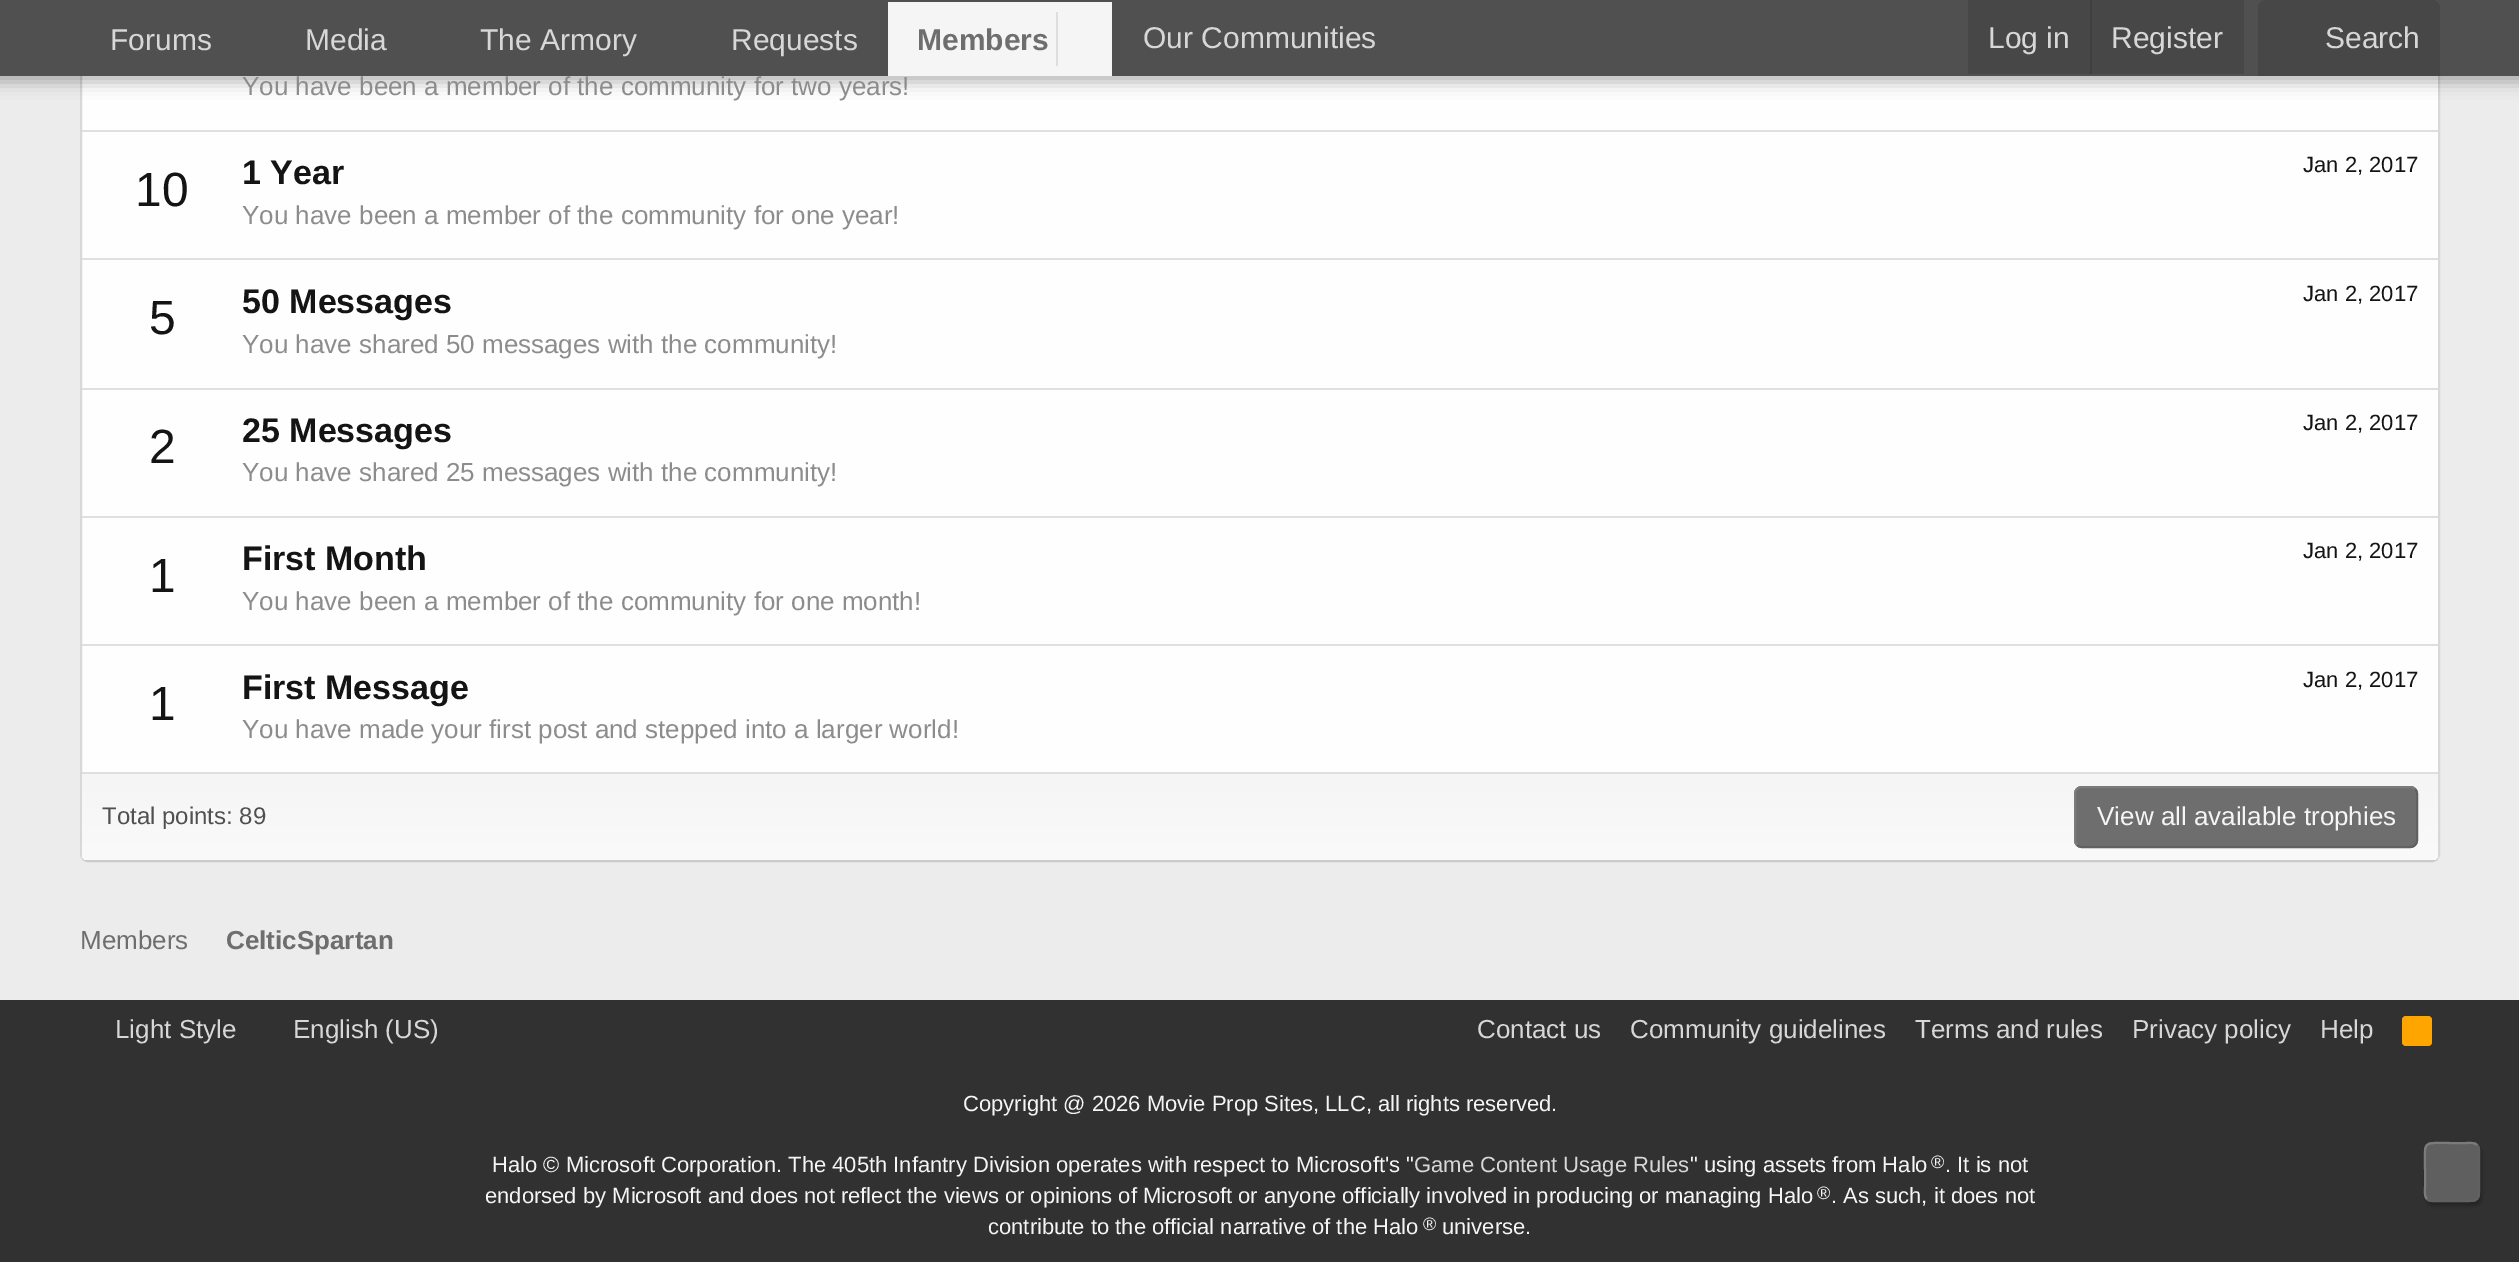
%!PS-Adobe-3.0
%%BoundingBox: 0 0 2519 1262
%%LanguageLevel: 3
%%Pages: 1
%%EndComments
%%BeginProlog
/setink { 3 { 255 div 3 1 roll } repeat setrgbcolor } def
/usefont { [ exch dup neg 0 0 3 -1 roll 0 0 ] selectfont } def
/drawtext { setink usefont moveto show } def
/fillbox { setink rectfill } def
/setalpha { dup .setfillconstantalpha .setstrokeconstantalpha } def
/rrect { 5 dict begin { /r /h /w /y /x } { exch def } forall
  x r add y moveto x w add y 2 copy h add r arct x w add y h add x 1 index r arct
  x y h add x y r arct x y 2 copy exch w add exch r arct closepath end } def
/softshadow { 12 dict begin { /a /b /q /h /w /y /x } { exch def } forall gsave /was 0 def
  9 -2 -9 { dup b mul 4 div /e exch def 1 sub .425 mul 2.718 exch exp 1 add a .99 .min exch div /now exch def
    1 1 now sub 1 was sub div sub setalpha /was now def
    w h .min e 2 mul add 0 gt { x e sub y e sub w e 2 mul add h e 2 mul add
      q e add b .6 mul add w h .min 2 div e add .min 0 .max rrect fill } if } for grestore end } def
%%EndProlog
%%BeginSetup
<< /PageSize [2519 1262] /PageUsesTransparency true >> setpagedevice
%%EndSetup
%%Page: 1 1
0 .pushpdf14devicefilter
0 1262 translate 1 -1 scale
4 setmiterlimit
0 0 2519 1262 236 236 236 fillbox
254 254 254 setink
80 -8 2360 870 8 rrect fill
216 216 216 setink
2 setlinewidth
2437 -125 moveto 2438.5 -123.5 2439 -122 2439 -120 curveto 2439 854 lineto 2439 856 2438.5 857.5 2437 859 curveto stroke
203 203 203 setink
2437 859 moveto 2435.5 860.5 2434 861 2432 861 curveto 88 861 lineto 86 861 84.5 860.5 83 859 curveto stroke
216 216 216 setink
83 859 moveto 81.5 857.5 81 856 81 854 curveto 81 -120 lineto 81 -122 81.5 -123.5 83 -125 curveto stroke
0 0 0 setink
-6 -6 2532 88 0 8 0.3 softshadow
0 0 2519 76 80 80 80 fillbox
(Forums) 110 50 /LiberationSans-Regular 30 215 215 215 drawtext
(Media) 305 50 /LiberationSans-Regular 30 215 215 215 drawtext
(The Armory) 480 50 /LiberationSans-Regular 30 215 215 215 drawtext
(Requests) 731 50 /LiberationSans-Regular 30 215 215 215 drawtext
888 2 224 74 245 245 245 fillbox
(Members) 917 50 /LiberationSans-Bold 30 110 110 110 drawtext
1056 12 2 54 222 222 222 fillbox
(Our Communities) 1143 48 /LiberationSans-Regular 30 215 215 215 drawtext
1968 0 276 74 71 71 71 fillbox
(Log in) 1988 48 /LiberationSans-Regular 30 215 215 215 drawtext
2090 0 2 74 63 63 63 fillbox
(Register) 2111 48 /LiberationSans-Regular 30 215 215 215 drawtext
71 71 71 setink
2266 0 moveto 2432 0 lineto 2436.5 0 2440 3.5 2440 8 curveto 2440 76 lineto 2258 76 lineto 2258 8 lineto 2258 3.5 2261.5 0 2266 0 curveto closepath fill
(Search) 2325 48 /LiberationSans-Regular 30 215 215 215 drawtext
(You have been a member of the community for two years!) 242 95 /LiberationSans-Regular 26 140 140 140 drawtext
82 130 2356 2 223 223 223 fillbox
(10) 135 206 /LiberationSans-Regular 48 20 20 20 drawtext
(1 Year) 242 184 /LiberationSans-Bold 34 20 20 20 drawtext
(Jan 2, 2017) 2303 172 /LiberationSans-Regular 22 20 20 20 drawtext
(You have been a member of the community for one year!) 242 224 /LiberationSans-Regular 26 140 140 140 drawtext
82 258 2356 2 223 223 223 fillbox
(5) 149 334 /LiberationSans-Regular 48 20 20 20 drawtext
(50 Messages) 242 313 /LiberationSans-Bold 34 20 20 20 drawtext
(Jan 2, 2017) 2303 301 /LiberationSans-Regular 22 20 20 20 drawtext
(You have shared 50 messages with the community!) 242 353 /LiberationSans-Regular 26 140 140 140 drawtext
82 388 2356 2 223 223 223 fillbox
(2) 149 463 /LiberationSans-Regular 48 20 20 20 drawtext
(25 Messages) 242 442 /LiberationSans-Bold 34 20 20 20 drawtext
(Jan 2, 2017) 2303 430 /LiberationSans-Regular 22 20 20 20 drawtext
(You have shared 25 messages with the community!) 242 481 /LiberationSans-Regular 26 140 140 140 drawtext
82 516 2356 2 223 223 223 fillbox
(1) 149 592 /LiberationSans-Regular 48 20 20 20 drawtext
(First Month) 242 570 /LiberationSans-Bold 34 20 20 20 drawtext
(Jan 2, 2017) 2303 558 /LiberationSans-Regular 22 20 20 20 drawtext
(You have been a member of the community for one month!) 242 610 /LiberationSans-Regular 26 140 140 140 drawtext
82 644 2356 2 223 223 223 fillbox
(1) 149 720 /LiberationSans-Regular 48 20 20 20 drawtext
(First Message) 242 699 /LiberationSans-Bold 34 20 20 20 drawtext
(Jan 2, 2017) 2303 687 /LiberationSans-Regular 22 20 20 20 drawtext
(You have made your first post and stepped into a larger world!) 242 738 /LiberationSans-Regular 26 140 140 140 drawtext
gsave 82 774 moveto 2438 774 lineto 2438 854 lineto 2438 857.5 2435.5 860 2432 860 curveto 88 860 lineto 84.5 860 82 857.5 82 854 curveto closepath clip newpath
<< /ShadingType 2 /ColorSpace /DeviceRGB /Coords [1260 774 1260 860] /Extend [true true] /Function << /FunctionType 2 /Domain [0 1] /C0 [0.961 0.961 0.961] /C1 [0.98 0.98 0.98] /N 1 >> >> shfill grestore
82 772 2356 2 223 223 223 fillbox
(Total points: 89) 102 824 /LiberationSans-Regular 24 80 80 80 drawtext
110 110 110 setink
2074 786 344 62 8 rrect fill
97 97 97 setink
2415 789 moveto 2416.5 790.5 2417 792 2417 794 curveto 2417 840 lineto 2417 842 2416.5 843.5 2415 845 curveto 2413.5 846.5 2412 847 2410 847 curveto 2082 847 lineto 2080 847 2078.5 846.5 2077 845 curveto stroke
123 123 123 setink
2077 845 moveto 2075.5 843.5 2075 842 2075 840 curveto 2075 794 lineto 2075 792 2075.5 790.5 2077 789 curveto 2078.5 787.5 2080 787 2082 787 curveto 2410 787 lineto 2412 787 2413.5 787.5 2415 789 curveto stroke
(View all available trophies) 2097 825 /LiberationSans-Regular 26 245 245 245 drawtext
(Members) 80 949 /LiberationSans-Regular 26 110 110 110 drawtext
(CelticSpartan) 226 949 /LiberationSans-Bold 26 110 110 110 drawtext
0 1000 2519 262 49 49 49 fillbox
(Light Style) 115 1038 /LiberationSans-Regular 26 215 215 215 drawtext
(English \(US\)) 293 1038 /LiberationSans-Regular 26 215 215 215 drawtext
(Contact us) 1477 1038 /LiberationSans-Regular 26 215 215 215 drawtext
(Community guidelines) 1630 1038 /LiberationSans-Regular 26 215 215 215 drawtext
(Terms and rules) 1915 1038 /LiberationSans-Regular 26 215 215 215 drawtext
(Privacy policy) 2132 1038 /LiberationSans-Regular 26 215 215 215 drawtext
(Help) 2320 1038 /LiberationSans-Regular 26 215 215 215 drawtext
255 165 0 setink
2402 1016 30 30 4 rrect fill
(Copyright @ 2026 Movie Prop Sites, LLC, all rights reserved.) 963 1111 /LiberationSans-Regular 22 245 245 245 drawtext
(Halo © Microsoft Corporation. The 405th Infantry Division operates with respect to Microsoft's ") 492 1172 /LiberationSans-Regular 22 245 245 245 drawtext
(Game Content Usage Rules) 1414 1172 /LiberationSans-Regular 22 215 215 215 drawtext
(" using assets from Halo) 1690 1172 /LiberationSans-Regular 22 245 245 245 drawtext
(®) 1931 1168 /LiberationSans-Regular 18 245 245 245 drawtext
(. It is not) 1945 1172 /LiberationSans-Regular 22 245 245 245 drawtext
(endorsed by Microsoft and does not reflect the views or opinions of Microsoft or anyone officially involved in producing or managing Halo) 485 1203 /LiberationSans-Regular 22 245 245 245 drawtext
(®) 1817 1199 /LiberationSans-Regular 18 245 245 245 drawtext
(. As such, it does not) 1831 1203 /LiberationSans-Regular 22 245 245 245 drawtext
(contribute to the official narrative of the Halo) 988 1234 /LiberationSans-Regular 22 245 245 245 drawtext
(®) 1423 1230 /LiberationSans-Regular 18 245 245 245 drawtext
(universe.) 1442 1234 /LiberationSans-Regular 22 245 245 245 drawtext
gsave
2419 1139 moveto 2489 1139 lineto 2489 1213 lineto 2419 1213 lineto closepath 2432 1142 moveto 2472 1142 lineto 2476.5 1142 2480 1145.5 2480 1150 curveto 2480 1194 lineto 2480 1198.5 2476.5 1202 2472 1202 curveto 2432 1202 lineto 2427.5 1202 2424 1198.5 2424 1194 curveto 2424 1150 lineto 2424 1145.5 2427.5 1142 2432 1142 curveto closepath eoclip newpath
0 0 0 setink
2426 1146 56 60 8 2 0.25 softshadow
grestore
0.75 setalpha
110 110 110 setink
2424 1142 56 60 8 rrect fill
1 setalpha
97 97 97 setink
2477 1145 moveto 2480 1148 2479 1153.5 2479 1157.5 curveto 2479 1172 lineto 2479 1204.5 2483.5 1201 2452 1201 curveto 2438.5 1201 lineto 2435 1201 2430 1202 2427 1199 curveto stroke
123 123 123 setink
2427 1199 moveto 2424 1196 2425 1190.5 2425 1186.5 curveto 2425 1172 lineto 2425 1139.5 2420.5 1143 2452 1143 curveto 2465.5 1143 lineto 2469 1143 2474 1142 2477 1145 curveto stroke
.poppdf14devicefilter showpage
%%EOF
